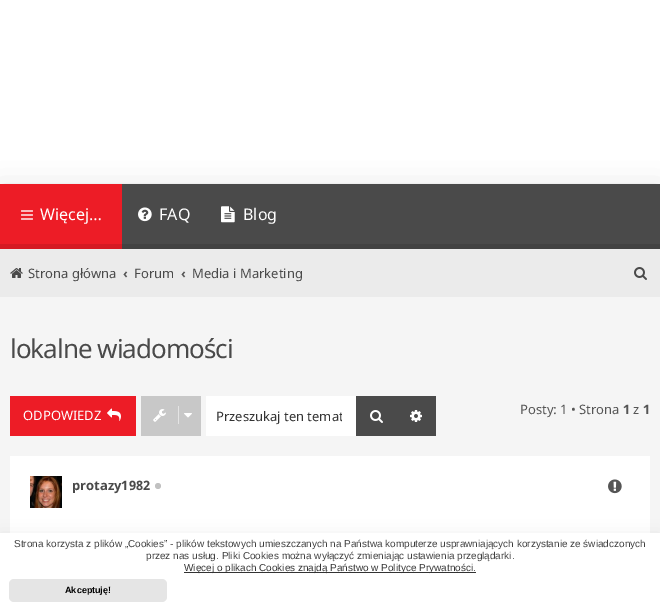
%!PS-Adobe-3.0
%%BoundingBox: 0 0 660 607
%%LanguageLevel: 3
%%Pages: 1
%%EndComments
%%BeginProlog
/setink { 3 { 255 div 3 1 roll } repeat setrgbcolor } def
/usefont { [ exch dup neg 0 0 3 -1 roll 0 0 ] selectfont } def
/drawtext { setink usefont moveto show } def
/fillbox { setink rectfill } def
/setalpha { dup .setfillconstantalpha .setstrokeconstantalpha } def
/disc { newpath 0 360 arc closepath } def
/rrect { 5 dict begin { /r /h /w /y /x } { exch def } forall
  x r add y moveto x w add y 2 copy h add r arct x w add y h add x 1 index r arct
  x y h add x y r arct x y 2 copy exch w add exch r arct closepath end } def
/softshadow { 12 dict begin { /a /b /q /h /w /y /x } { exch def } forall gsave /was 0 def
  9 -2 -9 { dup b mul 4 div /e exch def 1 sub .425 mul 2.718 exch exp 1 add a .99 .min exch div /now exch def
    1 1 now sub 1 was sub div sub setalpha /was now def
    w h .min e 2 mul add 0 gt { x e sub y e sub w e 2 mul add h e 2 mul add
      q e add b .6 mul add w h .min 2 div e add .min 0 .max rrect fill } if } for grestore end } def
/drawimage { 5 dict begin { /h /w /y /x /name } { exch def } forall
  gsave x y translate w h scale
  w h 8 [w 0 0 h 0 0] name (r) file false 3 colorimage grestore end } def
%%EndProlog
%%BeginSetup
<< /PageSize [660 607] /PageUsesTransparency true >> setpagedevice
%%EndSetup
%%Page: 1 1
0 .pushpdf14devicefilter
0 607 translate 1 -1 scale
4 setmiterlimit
0 0 660 607 255 255 255 fillbox
0 0 0 setink
0 194 660 113 0 15 0.2 softshadow
122 184 538 60 74 74 74 fillbox
122 244 538 5 66 66 66 fillbox
0 184 122 60 237 28 38 fillbox
0 244 122 5 213 25 34 fillbox
(assets/img1.rgb) 21 210 12 10 drawimage
(Więcej…) 40 220 /NotoSans-Regular 16 255 255 255 drawtext
(assets/img2.rgb) 138 207 14 15 drawimage
(FAQ) 159 220 /NotoSans-Regular 16 255 255 255 drawtext
(assets/img3.rgb) 221 206 14 17 drawimage
(Blog) 243 220 /NotoSans-Regular 16 255 255 255 drawtext
0 249 660 48 235 235 235 fillbox
(assets/img4.rgb) 10 268 13 10 drawimage
(Strona główna) 28 278 /NotoSans-Regular 13 74 74 74 drawtext
(‹) 123 278 /NotoSans-Bold 13 85 85 85 drawtext
(Forum) 134 278 /NotoSans-Regular 13 74 74 74 drawtext
(‹) 181 278 /NotoSans-Bold 13 85 85 85 drawtext
(Media i Marketing) 192 278 /NotoSans-Regular 13 74 74 74 drawtext
(assets/img5.rgb) 634 267 13 13 drawimage
0 297 660 236 245 245 245 fillbox
/NotoSans-Regular 26 usefont
74 74 74 setink
10 358 moveto -1 0 (lokalne wiadomości) ashow
10 396 126 40 237 28 38 fillbox
(ODPOWIEDZ) 23 420 /NotoSans-Regular 13 255 255 255 drawtext
(assets/img6.rgb) 107 408 14 13 drawimage
141 396 60 40 200 200 200 fillbox
(assets/img7.rgb) 153 409 13 13 drawimage
178 406 1 18 228 228 228 fillbox
(assets/img8.rgb) 184 413 8 5 drawimage
356 396 80 40 74 74 74 fillbox
(assets/img9.rgb) 370 410 13 13 drawimage
206 396 150 40 255 255 255 fillbox
gsave
216 407 126 18 rectclip
(Przeszukaj ten temat) 216 421 /NotoSans-Regular 13 51 51 51 drawtext
grestore
(assets/img10.rgb) 410 410 12 12 drawimage
(Posty: 1 • Strona) 520 414 /NotoSans-Regular 13 85 85 85 drawtext
(1) 623 414 /NotoSans-Bold 13 85 85 85 drawtext
(z) 633 414 /NotoSans-Regular 13 85 85 85 drawtext
(1) 643 414 /NotoSans-Bold 13 85 85 85 drawtext
10 456 640 77 255 255 255 fillbox
(assets/img11.rgb) 30 476 32 32 drawimage
(protazy1982) 72 490 /NotoSans-Bold 13 74 74 74 drawtext
193 193 193 setink
158 486 3 disc fill
(assets/img12.rgb) 608 479 14 15 drawimage
0 0 0 setink
0 533 660 74 0 8 0.05 softshadow
0 533 660 74 255 255 255 fillbox
(Strona korzysta z plików „Cookies” - plików tekstowych umieszczanych na Państwa komputerze usprawniających korzystanie ze świadczonych) 14 547 /LiberationSans-Regular 10 62 62 62 drawtext
(przez nas usług. Pliki Cookies można wyłączyć zmieniając ustawienia przeglądarki.) 146 559 /LiberationSans-Regular 10 62 62 62 drawtext
184 572 292 1 51 51 51 fillbox
(Więcej o plikach Cookies znajdą Państwo w Polityce Prywatności.) 184 571 /LiberationSans-Regular 10 51 51 51 drawtext
229 229 229 setink
9 579 158 23 5 rrect fill
(Akceptuję!) 65 593 /LiberationSans-Bold 9 0 0 0 drawtext
.poppdf14devicefilter showpage
%%EOF
